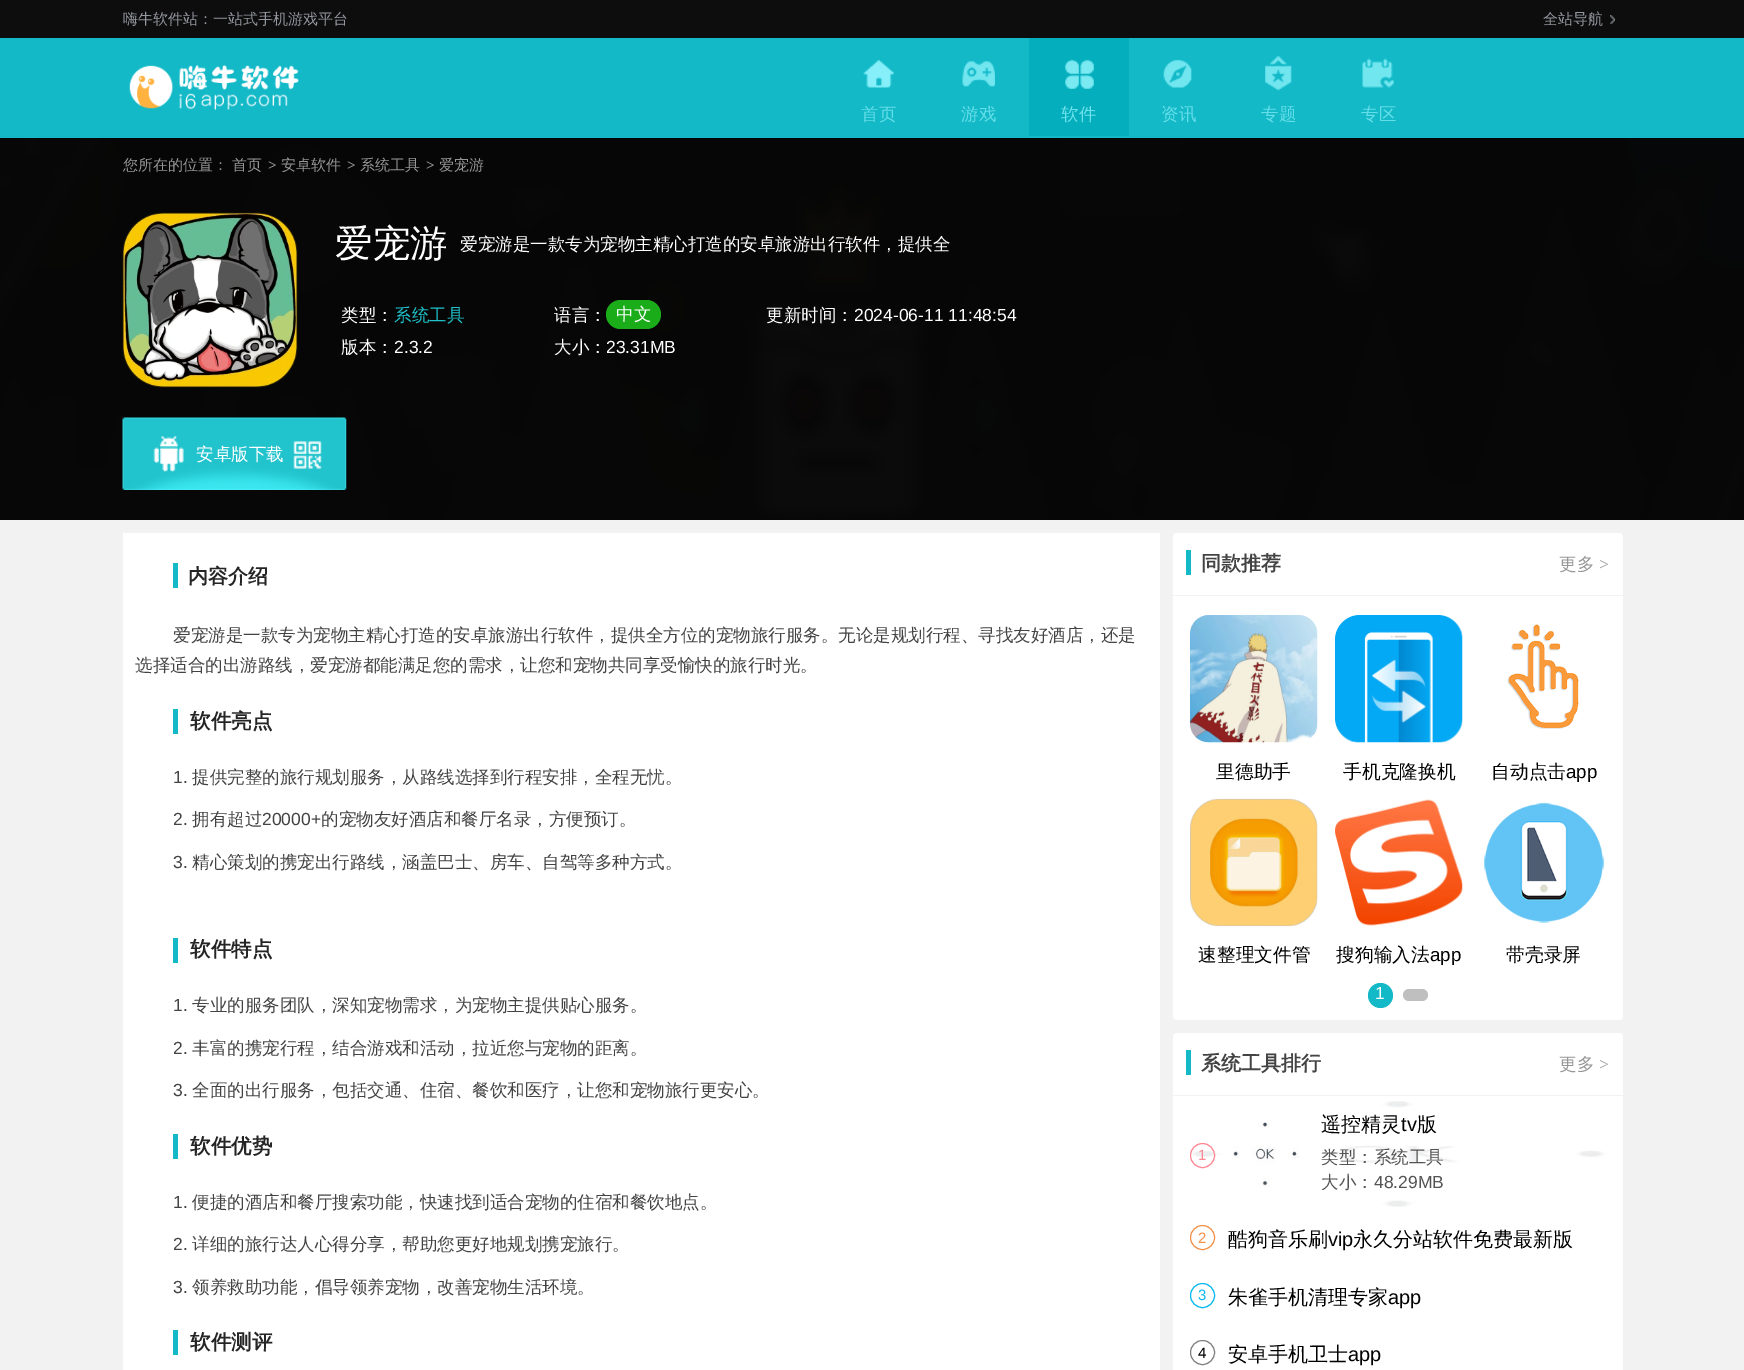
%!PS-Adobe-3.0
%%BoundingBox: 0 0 1744 1370
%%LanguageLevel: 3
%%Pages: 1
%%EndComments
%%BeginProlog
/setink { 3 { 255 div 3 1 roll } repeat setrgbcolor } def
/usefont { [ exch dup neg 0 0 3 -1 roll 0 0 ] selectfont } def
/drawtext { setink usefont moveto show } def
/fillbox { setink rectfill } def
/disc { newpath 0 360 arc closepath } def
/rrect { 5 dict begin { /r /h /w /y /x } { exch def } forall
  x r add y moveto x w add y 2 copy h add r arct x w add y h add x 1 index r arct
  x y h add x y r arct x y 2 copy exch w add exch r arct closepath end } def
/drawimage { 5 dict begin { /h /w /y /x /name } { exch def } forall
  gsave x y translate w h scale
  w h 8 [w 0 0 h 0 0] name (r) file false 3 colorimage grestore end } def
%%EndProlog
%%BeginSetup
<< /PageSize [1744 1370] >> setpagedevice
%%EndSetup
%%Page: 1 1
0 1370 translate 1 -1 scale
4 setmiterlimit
0 0 1744 1370 242 242 242 fillbox
0 0 1744 38 13 13 13 fillbox
(嗨牛软件站：一站式手机游戏平台) 123 24 /WenQuanYiZenHei-Medium 15 148 151 159 drawtext
(全站导航) 1543 24 /WenQuanYiZenHei-Medium 15 148 151 159 drawtext
(assets/img1.rgb) 1610 15 5 9 drawimage
0 38 1744 100 20 185 200 fillbox
(assets/img2.rgb) 129 65 170 45 drawimage
(assets/img3.rgb) 863 60 31 28 drawimage
(首页) 861 120 /WenQuanYiZenHei-Medium 17.5 100 223 233 drawtext
(assets/img4.rgb) 962 61 33 26 drawimage
(游戏) 961 120 /WenQuanYiZenHei-Medium 17.5 100 223 233 drawtext
1029 38 100 98 5 174 189 fillbox
(assets/img5.rgb) 1065 59 29 30 drawimage
(软件) 1061 120 /WenQuanYiZenHei-Medium 17.5 109 227 237 drawtext
(assets/img6.rgb) 1163 59 29 29 drawimage
(资讯) 1161 120 /WenQuanYiZenHei-Medium 17.5 100 223 233 drawtext
(assets/img7.rgb) 1265 56 27 35 drawimage
(专题) 1261 120 /WenQuanYiZenHei-Medium 17.5 100 223 233 drawtext
(assets/img8.rgb) 1362 58 32 30 drawimage
(专区) 1361 120 /WenQuanYiZenHei-Medium 17.5 100 223 233 drawtext
(assets/img9.rgb) 0 138 1744 382 drawimage
(您所在的位置：) 123 170 /WenQuanYiZenHei-Medium 15 150 150 150 drawtext
(首页) 232 170 /WenQuanYiZenHei-Medium 15 150 150 150 drawtext
(>) 268 170 /LiberationSerif-Bold 15 150 150 150 drawtext
(安卓软件) 281 170 /WenQuanYiZenHei-Medium 15 150 150 150 drawtext
(>) 347 170 /LiberationSerif-Bold 15 150 150 150 drawtext
(系统工具) 360 170 /WenQuanYiZenHei-Medium 15 150 150 150 drawtext
(>) 426 170 /LiberationSerif-Bold 15 150 150 150 drawtext
(爱宠游) 439 170 /WenQuanYiZenHei-Medium 15 150 150 150 drawtext
(assets/img10.rgb) 122 212 176 176 drawimage
(爱宠游) 335 256 /WenQuanYiZenHei-Medium 37.5 255 255 255 drawtext
(爱宠游是一款专为宠物主精心打造的安卓旅游出行软件，提供全) 460 250 /WenQuanYiZenHei-Medium 17.5 255 255 255 drawtext
(类型：) 341 321 /WenQuanYiZenHei-Medium 17.5 255 255 255 drawtext
(系统工具) 394 321 /WenQuanYiZenHei-Medium 17.5 33 195 204 drawtext
(语言：) 554 321 /WenQuanYiZenHei-Medium 17.5 255 255 255 drawtext
26 173 25 setink
606 300 55 29 14.5 rrect fill
(中文) 616 320 /WenQuanYiZenHei-Medium 17.5 255 255 255 drawtext
(更新时间：) 766 321 /WenQuanYiZenHei-Medium 17.5 255 255 255 drawtext
(2024-06-11 11:48:54) 854 321 /LiberationSans-Regular 17.5 255 255 255 drawtext
(版本：) 341 353 /WenQuanYiZenHei-Medium 17.5 255 255 255 drawtext
(2.3.2) 394 353 /LiberationSans-Regular 17.5 255 255 255 drawtext
(大小：) 554 353 /WenQuanYiZenHei-Medium 17.5 255 255 255 drawtext
(23.31MB) 606 353 /LiberationSans-Regular 17.5 255 255 255 drawtext
(assets/img11.rgb) 122 417 225 73 drawimage
(assets/img12.rgb) 153 436 31 36 drawimage
(安卓版下载) 196 460 /WenQuanYiZenHei-Medium 17.5 255 255 255 drawtext
(assets/img13.rgb) 293 441 29 28 drawimage
123 533 1037 837 255 255 255 fillbox
173 563 5 25 20 185 200 fillbox
(内容介绍) 188 583 /WenQuanYiZenHei-Bold 20 37 37 37 drawtext
(爱宠游是一款专为宠物主精心打造的安卓旅游出行软件，提供全方位的宠物旅行服务。无论是规划行程、寻找友好酒店，还是) 173 641 /WenQuanYiZenHei-Medium 17.5 67 67 67 drawtext
(选择适合的出游路线，爱宠游都能满足您的需求，让您和宠物共同享受愉快的旅行时光。) 135 671 /WenQuanYiZenHei-Medium 17.5 67 67 67 drawtext
173 709 5 25 20 185 200 fillbox
(软件亮点) 190 728 /WenQuanYiZenHei-Bold 20.5 37 37 37 drawtext
(1.) 173 783 /LiberationSans-Regular 17.5 67 67 67 drawtext
(提供完整的旅行规划服务，从路线选择到行程安排，全程无忧。) 192 783 /WenQuanYiZenHei-Medium 17.5 67 67 67 drawtext
(2.) 173 825 /LiberationSans-Regular 17.5 67 67 67 drawtext
(拥有超过) 192 825 /WenQuanYiZenHei-Medium 17.5 67 67 67 drawtext
(20000+) 262 825 /LiberationSans-Regular 17.5 67 67 67 drawtext
(的宠物友好酒店和餐厅名录，方便预订。) 321 825 /WenQuanYiZenHei-Medium 17.5 67 67 67 drawtext
(3.) 173 868 /LiberationSans-Regular 17.5 67 67 67 drawtext
(精心策划的携宠出行路线，涵盖巴士、房车、自驾等多种方式。) 192 868 /WenQuanYiZenHei-Medium 17.5 67 67 67 drawtext
173 938 5 25 20 185 200 fillbox
(软件特点) 190 956 /WenQuanYiZenHei-Bold 20.5 37 37 37 drawtext
(1.) 173 1011 /LiberationSans-Regular 17.5 67 67 67 drawtext
(专业的服务团队，深知宠物需求，为宠物主提供贴心服务。) 192 1011 /WenQuanYiZenHei-Medium 17.5 67 67 67 drawtext
(2.) 173 1054 /LiberationSans-Regular 17.5 67 67 67 drawtext
(丰富的携宠行程，结合游戏和活动，拉近您与宠物的距离。) 192 1054 /WenQuanYiZenHei-Medium 17.5 67 67 67 drawtext
(3.) 173 1096 /LiberationSans-Regular 17.5 67 67 67 drawtext
(全面的出行服务，包括交通、住宿、餐饮和医疗，让您和宠物旅行更安心。) 192 1096 /WenQuanYiZenHei-Medium 17.5 67 67 67 drawtext
173 1134 5 25 20 185 200 fillbox
(软件优势) 190 1153 /WenQuanYiZenHei-Bold 20.5 37 37 37 drawtext
(1.) 173 1208 /LiberationSans-Regular 17.5 67 67 67 drawtext
(便捷的酒店和餐厅搜索功能，快速找到适合宠物的住宿和餐饮地点。) 192 1208 /WenQuanYiZenHei-Medium 17.5 67 67 67 drawtext
(2.) 173 1250 /LiberationSans-Regular 17.5 67 67 67 drawtext
(详细的旅行达人心得分享，帮助您更好地规划携宠旅行。) 192 1250 /WenQuanYiZenHei-Medium 17.5 67 67 67 drawtext
(3.) 173 1293 /LiberationSans-Regular 17.5 67 67 67 drawtext
(领养救助功能，倡导领养宠物，改善宠物生活环境。) 192 1293 /WenQuanYiZenHei-Medium 17.5 67 67 67 drawtext
173 1330 5 25 20 185 200 fillbox
(软件测评) 190 1349 /WenQuanYiZenHei-Bold 20.5 37 37 37 drawtext
255 255 255 setink
1173 533 450 487 4 rrect fill
1173 595 450 1 242 242 242 fillbox
1186 550 5 25 20 185 200 fillbox
(同款推荐) 1201 570 /WenQuanYiZenHei-Bold 20 67 67 67 drawtext
(更多) 1559 570 /WenQuanYiZenHei-Medium 17.5 150 150 150 drawtext
(>) 1599 570 /LiberationSerif-Regular 17.5 150 150 150 drawtext
(assets/img14.rgb) 1190 615 128 128 drawimage
(里德助手) 1216 778 /WenQuanYiZenHei-Medium 18.75 0 0 0 drawtext
(assets/img15.rgb) 1335 615 128 128 drawimage
(手机克隆换机) 1343 778 /WenQuanYiZenHei-Medium 18.75 0 0 0 drawtext
(assets/img16.rgb) 1507 624 72 105 drawimage
(自动点击) 1491 778 /WenQuanYiZenHei-Medium 18.75 0 0 0 drawtext
(app) 1566 778 /LiberationSans-Regular 18.75 0 0 0 drawtext
(assets/img17.rgb) 1190 798 128 129 drawimage
(速整理文件管) 1198 961 /WenQuanYiZenHei-Medium 18.75 0 0 0 drawtext
(assets/img18.rgb) 1335 799 128 127 drawimage
(搜狗输入法) 1336 961 /WenQuanYiZenHei-Medium 18.75 0 0 0 drawtext
(app) 1430 961 /LiberationSans-Regular 18.75 0 0 0 drawtext
(assets/img19.rgb) 1484 802 121 121 drawimage
(带壳录屏) 1506 961 /WenQuanYiZenHei-Medium 18.75 0 0 0 drawtext
20 185 200 setink
1380.5 995.5 12.5 disc fill
(1) 1375 999 /LiberationSans-Regular 17.5 255 255 255 drawtext
191 191 191 setink
1403 989 25 12 6 rrect fill
255 255 255 setink
1173 1033 450 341 4 rrect fill
1173 1095 450 1 242 242 242 fillbox
1186 1050 5 25 20 185 200 fillbox
(系统工具排行) 1201 1070 /WenQuanYiZenHei-Bold 20 67 67 67 drawtext
(更多) 1559 1070 /WenQuanYiZenHei-Medium 17.5 150 150 150 drawtext
(>) 1599 1070 /LiberationSerif-Regular 17.5 150 150 150 drawtext
(assets/img20.rgb) 1191 1101 414 106 drawimage
255 135 145 setink
1202.5 1155.5 12 disc stroke
(1) 1198 1160 /LiberationSans-Regular 15 255 135 145 drawtext
(assets/img21.rgb) 1233 1122 66 66 drawimage
(遥控精灵) 1321 1131 /WenQuanYiZenHei-Medium 20 0 0 0 drawtext
(tv) 1401 1131 /LiberationSans-Regular 20 0 0 0 drawtext
(版) 1417 1131 /WenQuanYiZenHei-Medium 20 0 0 0 drawtext
(类型：系统工具) 1321 1163 /WenQuanYiZenHei-Medium 17.5 83 83 83 drawtext
(大小：) 1321 1188 /WenQuanYiZenHei-Medium 17.5 83 83 83 drawtext
(48.29MB) 1374 1188 /LiberationSans-Regular 17.5 83 83 83 drawtext
241 145 73 setink
1202.5 1237.5 12 disc stroke
(2) 1198 1243 /LiberationSans-Regular 15 241 145 73 drawtext
(酷狗音乐刷) 1228 1246 /WenQuanYiZenHei-Medium 20 0 0 0 drawtext
(vip) 1328 1246 /LiberationSans-Regular 20 0 0 0 drawtext
(永久分站软件免费最新版) 1353 1246 /WenQuanYiZenHei-Medium 20 0 0 0 drawtext
6 185 238 setink
1202.5 1295.5 12 disc stroke
(3) 1198 1300 /LiberationSans-Regular 15 6 185 238 drawtext
(朱雀手机清理专家) 1228 1304 /WenQuanYiZenHei-Medium 20 0 0 0 drawtext
(app) 1388 1304 /LiberationSans-Regular 20 0 0 0 drawtext
128 128 128 setink
1202.5 1352.5 12 disc stroke
(4) 1198 1358 /LiberationSans-Regular 15 0 0 0 drawtext
(安卓手机卫士) 1228 1361 /WenQuanYiZenHei-Medium 20 0 0 0 drawtext
(app) 1348 1361 /LiberationSans-Regular 20 0 0 0 drawtext
showpage
%%EOF
